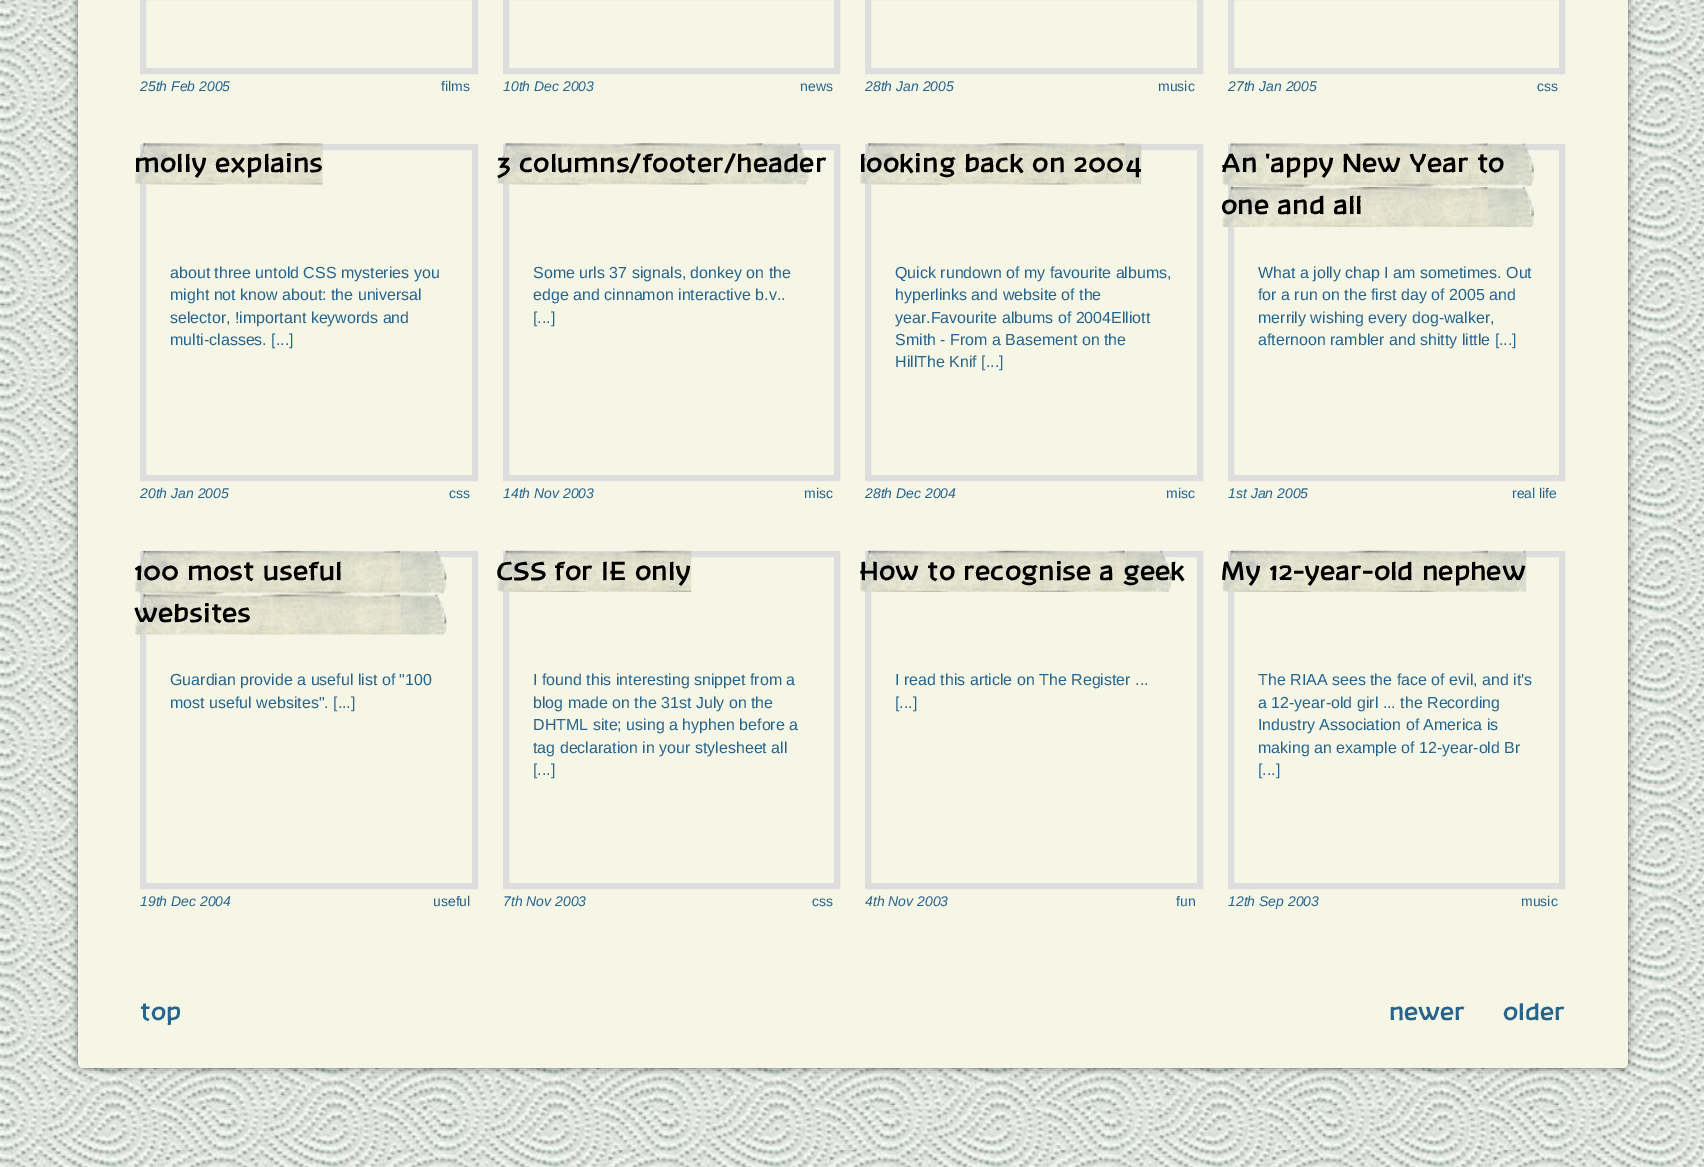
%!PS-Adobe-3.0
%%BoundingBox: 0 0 1704 1167
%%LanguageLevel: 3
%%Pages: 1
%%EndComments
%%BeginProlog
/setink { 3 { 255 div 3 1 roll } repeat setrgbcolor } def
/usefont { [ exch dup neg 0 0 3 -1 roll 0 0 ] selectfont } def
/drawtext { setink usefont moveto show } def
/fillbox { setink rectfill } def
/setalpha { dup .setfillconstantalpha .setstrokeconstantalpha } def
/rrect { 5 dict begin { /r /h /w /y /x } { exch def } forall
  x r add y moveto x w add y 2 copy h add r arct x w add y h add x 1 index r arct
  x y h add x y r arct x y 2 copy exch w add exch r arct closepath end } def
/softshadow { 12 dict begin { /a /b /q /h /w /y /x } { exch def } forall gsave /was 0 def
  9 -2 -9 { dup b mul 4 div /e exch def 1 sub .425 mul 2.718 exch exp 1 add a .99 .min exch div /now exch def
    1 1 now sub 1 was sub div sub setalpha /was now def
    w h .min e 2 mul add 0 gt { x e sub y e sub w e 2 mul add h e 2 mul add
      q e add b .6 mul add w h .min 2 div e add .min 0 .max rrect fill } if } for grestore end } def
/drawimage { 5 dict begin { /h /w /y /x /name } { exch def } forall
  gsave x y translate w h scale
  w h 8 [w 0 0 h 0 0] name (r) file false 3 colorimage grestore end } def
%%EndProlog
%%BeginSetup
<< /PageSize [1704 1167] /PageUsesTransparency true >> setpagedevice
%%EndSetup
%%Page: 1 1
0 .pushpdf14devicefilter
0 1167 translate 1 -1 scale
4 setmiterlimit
0 0 1704 1167 255 255 255 fillbox
(assets/img1.rgb) 0 0 1704 1167 drawimage
0 0 0 setink
78 -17 1550 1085 5 4 0.5 softshadow
246 246 230 setink
78 -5 1550 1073 5 rrect fill
221 221 221 setink
6 setlinewidth
143 -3 332 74 rectstroke
(25th Feb 2005) 140 91 /LiberationSans-Italic 14 39 100 139 drawtext
(films) 441 91 /LiberationSans-Regular 14 39 100 139 drawtext
221 221 221 setink
506 -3 331 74 rectstroke
(10th Dec 2003) 503 91 /LiberationSans-Italic 14 39 100 139 drawtext
(news) 800 91 /LiberationSans-Regular 14 39 100 139 drawtext
221 221 221 setink
868 -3 332 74 rectstroke
(28th Jan 2005) 865 91 /LiberationSans-Italic 14 39 100 139 drawtext
(music) 1158 91 /LiberationSans-Regular 14 39 100 139 drawtext
221 221 221 setink
1231 -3 331 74 rectstroke
(27th Jan 2005) 1228 91 /LiberationSans-Italic 14 39 100 139 drawtext
(css) 1537 91 /LiberationSans-Regular 14 39 100 139 drawtext
221 221 221 setink
143 147 332 331 rectstroke
(assets/img2.rgb) 135 143 188 42 drawimage
(molly explains) 134 172 /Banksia-Bold 26 0 0 0 drawtext
(about three untold CSS mysteries you) 170 278 /LiberationSans-Regular 16 39 100 139 drawtext
(might not know about: the universal) 170 300 /LiberationSans-Regular 16 39 100 139 drawtext
(selector, !important keywords and) 170 323 /LiberationSans-Regular 16 39 100 139 drawtext
(multi-classes. [...]) 170 345 /LiberationSans-Regular 16 39 100 139 drawtext
(20th Jan 2005) 140 498 /LiberationSans-Italic 14 39 100 139 drawtext
(css) 449 498 /LiberationSans-Regular 14 39 100 139 drawtext
221 221 221 setink
506 147 331 331 rectstroke
(assets/img3.rgb) 497 143 312 42 drawimage
(3 columns/footer/header) 496 172 /Banksia-Bold 26 0 0 0 drawtext
(Some urls 37 signals, donkey on the) 533 278 /LiberationSans-Regular 16 39 100 139 drawtext
(edge and cinnamon interactive b.v..) 533 300 /LiberationSans-Regular 16 39 100 139 drawtext
([...]) 533 323 /LiberationSans-Regular 16 39 100 139 drawtext
(14th Nov 2003) 503 498 /LiberationSans-Italic 14 39 100 139 drawtext
(misc) 804 498 /LiberationSans-Regular 14 39 100 139 drawtext
221 221 221 setink
868 147 332 331 rectstroke
(assets/img4.rgb) 860 143 282 42 drawimage
(looking back on 2004) 859 172 /Banksia-Bold 26 0 0 0 drawtext
(Quick rundown of my favourite albums,) 895 278 /LiberationSans-Regular 16 39 100 139 drawtext
(hyperlinks and website of the) 895 300 /LiberationSans-Regular 16 39 100 139 drawtext
(year.Favourite albums of 2004Elliott) 895 323 /LiberationSans-Regular 16 39 100 139 drawtext
(Smith - From a Basement on the) 895 345 /LiberationSans-Regular 16 39 100 139 drawtext
(HillThe Knif [...]) 895 367 /LiberationSans-Regular 16 39 100 139 drawtext
(28th Dec 2004) 865 498 /LiberationSans-Italic 14 39 100 139 drawtext
(misc) 1166 498 /LiberationSans-Regular 14 39 100 139 drawtext
221 221 221 setink
1231 147 331 331 rectstroke
(assets/img5.rgb) 1222 143 312 84 drawimage
(An 'appy New Year to) 1221 172 /Banksia-Bold 26 0 0 0 drawtext
(one and all) 1221 214 /Banksia-Bold 26 0 0 0 drawtext
(What a jolly chap I am sometimes. Out) 1258 278 /LiberationSans-Regular 16 39 100 139 drawtext
(for a run on the first day of 2005 and) 1258 300 /LiberationSans-Regular 16 39 100 139 drawtext
(merrily wishing every dog-walker,) 1258 323 /LiberationSans-Regular 16 39 100 139 drawtext
(afternoon rambler and shitty little [...]) 1258 345 /LiberationSans-Regular 16 39 100 139 drawtext
(1st Jan 2005) 1228 498 /LiberationSans-Italic 14 39 100 139 drawtext
(real life) 1512 498 /LiberationSans-Regular 14 39 100 139 drawtext
221 221 221 setink
143 554 332 332 rectstroke
(assets/img6.rgb) 135 550 312 85 drawimage
(100 most useful) 134 580 /Banksia-Bold 26 0 0 0 drawtext
(websites) 134 622 /Banksia-Bold 26 0 0 0 drawtext
(Guardian provide a useful list of "100) 170 685 /LiberationSans-Regular 16 39 100 139 drawtext
(most useful websites". [...]) 170 708 /LiberationSans-Regular 16 39 100 139 drawtext
(19th Dec 2004) 140 906 /LiberationSans-Italic 14 39 100 139 drawtext
(useful) 433 906 /LiberationSans-Regular 14 39 100 139 drawtext
221 221 221 setink
506 554 331 332 rectstroke
(assets/img7.rgb) 497 550 195 42 drawimage
(CSS for IE only) 496 580 /Banksia-Bold 26 0 0 0 drawtext
(I found this interesting snippet from a) 533 685 /LiberationSans-Regular 16 39 100 139 drawtext
(blog made on the 31st July on the) 533 708 /LiberationSans-Regular 16 39 100 139 drawtext
(DHTML site; using a hyphen before a) 533 730 /LiberationSans-Regular 16 39 100 139 drawtext
(tag declaration in your stylesheet all) 533 753 /LiberationSans-Regular 16 39 100 139 drawtext
([...]) 533 775 /LiberationSans-Regular 16 39 100 139 drawtext
(7th Nov 2003) 503 906 /LiberationSans-Italic 14 39 100 139 drawtext
(css) 812 906 /LiberationSans-Regular 14 39 100 139 drawtext
221 221 221 setink
868 554 332 332 rectstroke
(assets/img8.rgb) 860 550 312 42 drawimage
(How to recognise a geek) 859 580 /Banksia-Bold 26 0 0 0 drawtext
(I read this article on The Register ...) 895 685 /LiberationSans-Regular 16 39 100 139 drawtext
([...]) 895 708 /LiberationSans-Regular 16 39 100 139 drawtext
(4th Nov 2003) 865 906 /LiberationSans-Italic 14 39 100 139 drawtext
(fun) 1176 906 /LiberationSans-Regular 14 39 100 139 drawtext
221 221 221 setink
1231 554 331 332 rectstroke
(assets/img9.rgb) 1222 550 305 42 drawimage
(My 12-year-old nephew) 1221 580 /Banksia-Bold 26 0 0 0 drawtext
(The RIAA sees the face of evil, and it's) 1258 685 /LiberationSans-Regular 16 39 100 139 drawtext
(a 12-year-old girl ... the Recording) 1258 708 /LiberationSans-Regular 16 39 100 139 drawtext
(Industry Association of America is) 1258 730 /LiberationSans-Regular 16 39 100 139 drawtext
(making an example of 12-year-old Br) 1258 753 /LiberationSans-Regular 16 39 100 139 drawtext
([...]) 1258 775 /LiberationSans-Regular 16 39 100 139 drawtext
(12th Sep 2003) 1228 906 /LiberationSans-Italic 14 39 100 139 drawtext
(music) 1521 906 /LiberationSans-Regular 14 39 100 139 drawtext
(top) 140 1020 /Banksia-Bold 24 39 100 139 drawtext
(newer) 1389 1020 /Banksia-Bold 24 39 100 139 drawtext
(older) 1503 1020 /Banksia-Bold 24 39 100 139 drawtext
.poppdf14devicefilter showpage
%%EOF
